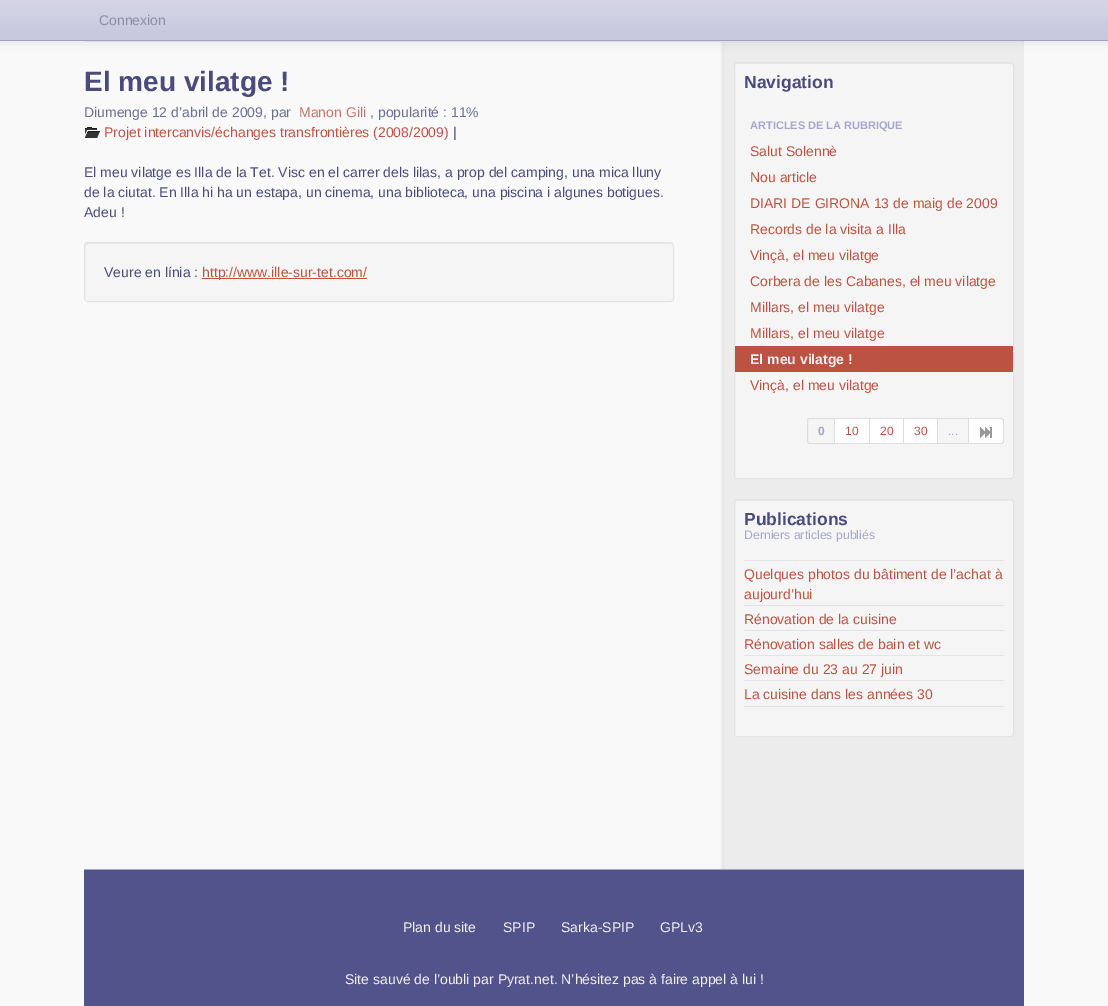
%!PS-Adobe-3.0
%%BoundingBox: 0 0 1108 1006
%%LanguageLevel: 3
%%Pages: 1
%%EndComments
%%BeginProlog
/setink { 3 { 255 div 3 1 roll } repeat setrgbcolor } def
/usefont { [ exch dup neg 0 0 3 -1 roll 0 0 ] selectfont } def
/drawtext { setink usefont moveto show } def
/fillbox { setink rectfill } def
/setalpha { dup .setfillconstantalpha .setstrokeconstantalpha } def
/rrect { 5 dict begin { /r /h /w /y /x } { exch def } forall
  x r add y moveto x w add y 2 copy h add r arct x w add y h add x 1 index r arct
  x y h add x y r arct x y 2 copy exch w add exch r arct closepath end } def
/softshadow { 12 dict begin { /a /b /q /h /w /y /x } { exch def } forall gsave /was 0 def
  9 -2 -9 { dup b mul 4 div /e exch def 1 sub .425 mul 2.718 exch exp 1 add a .99 .min exch div /now exch def
    1 1 now sub 1 was sub div sub setalpha /was now def
    w h .min e 2 mul add 0 gt { x e sub y e sub w e 2 mul add h e 2 mul add
      q e add b .6 mul add w h .min 2 div e add .min 0 .max rrect fill } if } for grestore end } def
/drawimage { 5 dict begin { /h /w /y /x /name } { exch def } forall
  gsave x y translate w h scale
  w h 8 [w 0 0 h 0 0] name (r) file false 3 colorimage grestore end } def
%%EndProlog
%%BeginSetup
<< /PageSize [1108 1006] /PageUsesTransparency true >> setpagedevice
%%EndSetup
%%Page: 1 1
0 .pushpdf14devicefilter
0 1006 translate 1 -1 scale
4 setmiterlimit
0 0 1108 1006 249 249 249 fillbox
(assets/img1.rgb) 720 41 304 21 drawimage
84 6 940 36 4 rrect fill
0.05 setalpha
84 41 940 1 0 0 0 fillbox
1 setalpha
(assets/img2.rgb) 720 757 304 112 drawimage
84 870 940 136 83 83 139 fillbox
84 869 940 1 166 166 203 fillbox
0 0 0 setink
0 1 1108 41 0 5 0.1 softshadow
gsave 0 0 moveto 1108 0 lineto 1108 40 lineto 0 40 lineto closepath clip newpath
<< /ShadingType 2 /ColorSpace /DeviceRGB /Coords [554 0 554 40] /Extend [true true] /Function << /FunctionType 2 /Domain [0 1] /C0 [0.839 0.839 0.906] /C1 [0.776 0.776 0.871] /N 1 >> >> shfill grestore
0 40 1108 1 160 160 199 fillbox
(Connexion) 99 25 /LiberationSans-Regular 14 141 142 165 drawtext
(Plan du site) 403 932 /LiberationSans-Regular 14 240 240 240 drawtext
(SPIP) 503 932 /LiberationSans-Regular 14 240 240 240 drawtext
(Sarka-SPIP) 561 932 /LiberationSans-Regular 14 240 240 240 drawtext
(GPLv3) 660 932 /LiberationSans-Regular 14 240 240 240 drawtext
(Site sauvé de l’oubli par Pyrat.net. N’hésitez pas à faire appel à lui !) 345 984 /LiberationSans-Regular 14 240 240 240 drawtext
(assets/img3.rgb) 720 62 304 695 drawimage
(El meu vilatge !) 84 91 /LiberationSans-Bold 28 74 74 123 drawtext
(Diumenge 12 d’abril de 2009, par) 84 117 /LiberationSans-Regular 14 109 109 148 drawtext
(Manon Gili) 299 117 /LiberationSans-Regular 14 200 115 103 drawtext
(, popularité : 11%) 370 117 /LiberationSans-Regular 14 109 109 148 drawtext
(assets/img4.rgb) 85 127 15 11 drawimage
(Projet intercanvis/échanges transfrontières \(2008/2009\)) 104 137 /LiberationSans-Regular 14 188 82 66 drawtext
(|) 453 137 /LiberationSans-Regular 14 74 74 123 drawtext
(El meu vilatge es Illa de la Tet. Visc en el carrer dels lilas, a prop del camping, una mica lluny) 84 177 /LiberationSans-Regular 14 74 74 123 drawtext
(de la ciutat. En Illa hi ha un estapa, un cinema, una biblioteca, una piscina i algunes botigues.) 84 197 /LiberationSans-Regular 14 74 74 123 drawtext
(Adeu !) 84 217 /LiberationSans-Regular 14 74 74 123 drawtext
245 245 245 setink
84 242 590 60 4 rrect fill
233 233 233 setink
88 244 moveto 670 244 lineto 672 244 673 245 673 247 curveto 673 246 lineto 673 244 672 243 670 243 curveto 88 243 lineto 86 243 85 244 85 246 curveto 85 247 lineto 85 245 86 244 88 244 curveto closepath fill
227 227 227 setink
84.5 242.5 589 59 3.5 rrect stroke
(Veure en línia :) 104 277 /LiberationSans-Regular 14 74 74 123 drawtext
202 278 165 1 188 82 66 fillbox
(http://www.ille-sur-tet.com/) 202 277 /LiberationSans-Regular 14 188 82 66 drawtext
245 245 245 setink
734 62 280 417 3 rrect fill
233 233 233 setink
737 64 moveto 1011 64 lineto 1012 64 1013 65 1013 66 curveto 1013 64 lineto 1011 63 lineto 737 63 lineto 735 63 735 65 735 66 curveto 735 65 736 64 737 64 curveto closepath fill
227 227 227 setink
734.5 62.5 279 416 2.5 rrect stroke
(Navigation) 744 88 /LiberationSans-Bold 17.5 74 74 123 drawtext
(ARTICLES DE LA RUBRIQUE) 750 129 /LiberationSans-Bold 11 166 166 203 drawtext
(Salut Solennè) 750 156 /LiberationSans-Regular 14 188 82 66 drawtext
(Nou article) 750 182 /LiberationSans-Regular 14 188 82 66 drawtext
(DIARI DE GIRONA 13 de maig de 2009) 750 208 /LiberationSans-Regular 14 188 82 66 drawtext
(Records de la visita a Illa) 750 234 /LiberationSans-Regular 14 188 82 66 drawtext
(Vinçà, el meu vilatge) 750 260 /LiberationSans-Regular 14 188 82 66 drawtext
(Corbera de les Cabanes, el meu vilatge) 750 286 /LiberationSans-Regular 14 188 82 66 drawtext
(Millars, el meu vilatge) 750 312 /LiberationSans-Regular 14 188 82 66 drawtext
(Millars, el meu vilatge) 750 338 /LiberationSans-Regular 14 188 82 66 drawtext
735 346 278 26 188 82 66 fillbox
(El meu vilatge !) 750 364 /LiberationSans-Bold 14 240 240 240 drawtext
(Vinçà, el meu vilatge) 750 390 /LiberationSans-Regular 14 188 82 66 drawtext
221 221 221 setink
810 418.5 moveto 834.5 418.5 lineto 834.5 443.5 lineto 810 443.5 lineto 808.5 443.5 807.5 442.5 807.5 441 curveto 807.5 421 lineto 807.5 419.5 808.5 418.5 810 418.5 curveto closepath stroke
(0) 818 435 /LiberationSans-Bold 12 166 166 203 drawtext
835 419 34 24 255 255 255 fillbox
835 418 134 1 221 221 221 fillbox
869 418 1 26 221 221 221 fillbox
835 443 35 1 221 221 221 fillbox
(10) 845 435 /LiberationSans-Regular 12 188 82 66 drawtext
870 419 33 24 255 255 255 fillbox
903 418 1 26 221 221 221 fillbox
870 443 34 1 221 221 221 fillbox
(20) 880 435 /LiberationSans-Regular 12 188 82 66 drawtext
904 419 33 24 255 255 255 fillbox
937 418 1 26 221 221 221 fillbox
904 443 34 1 221 221 221 fillbox
(30) 914 435 /LiberationSans-Regular 12 188 82 66 drawtext
968 418 1 26 221 221 221 fillbox
938 443 31 1 221 221 221 fillbox
(...) 948 435 /LiberationSans-Regular 12 166 166 203 drawtext
255 255 255 setink
969 419 moveto 1001 419 lineto 1002 419 1003 420 1003 421 curveto 1003 441 lineto 1003 442 1002 443 1001 443 curveto 969 443 lineto closepath fill
221 221 221 setink
969 418 moveto 1001 418 lineto 1002.5 418 1004 419.5 1004 421 curveto 1004 441 lineto 1004 442.5 1002.5 444 1001 444 curveto 969 444 lineto closepath 969 419 moveto 1001 419 lineto 1002 419 1003 420 1003 421 curveto 1003 441 lineto 1003 442 1002 443 1001 443 curveto 969 443 lineto closepath eofill
(assets/img5.rgb) 980 427 12 11 drawimage
245 245 245 setink
734 499 280 238 3 rrect fill
233 233 233 setink
737 501 moveto 1011 501 lineto 1012 501 1013 502 1013 503 curveto 1013 501 lineto 1011 500 lineto 737 500 lineto 735 500 735 502 735 503 curveto 735 502 736 501 737 501 curveto closepath fill
227 227 227 setink
734.5 499.5 279 237 2.5 rrect stroke
(Publications) 744 525 /LiberationSans-Bold 17.5 74 74 123 drawtext
(Derniers articles publiés) 744 539 /LiberationSans-Regular 12.25 166 166 203 drawtext
744 560 260 1 227 228 232 fillbox
(Quelques photos du bâtiment de l’achat à) 744 579 /LiberationSans-Regular 14 188 82 66 drawtext
(aujourd’hui) 744 599 /LiberationSans-Regular 14 188 82 66 drawtext
744 605 260 1 227 228 232 fillbox
(Rénovation de la cuisine) 744 624 /LiberationSans-Regular 14 188 82 66 drawtext
744 630 260 1 227 228 232 fillbox
(Rénovation salles de bain et wc) 744 649 /LiberationSans-Regular 14 188 82 66 drawtext
744 655 260 1 227 228 232 fillbox
(Semaine du 23 au 27 juin) 744 674 /LiberationSans-Regular 14 188 82 66 drawtext
744 680 260 1 227 228 232 fillbox
744 706 260 1 227 228 232 fillbox
(La cuisine dans les années 30) 744 699 /LiberationSans-Regular 14 188 82 66 drawtext
.poppdf14devicefilter showpage
%%EOF
